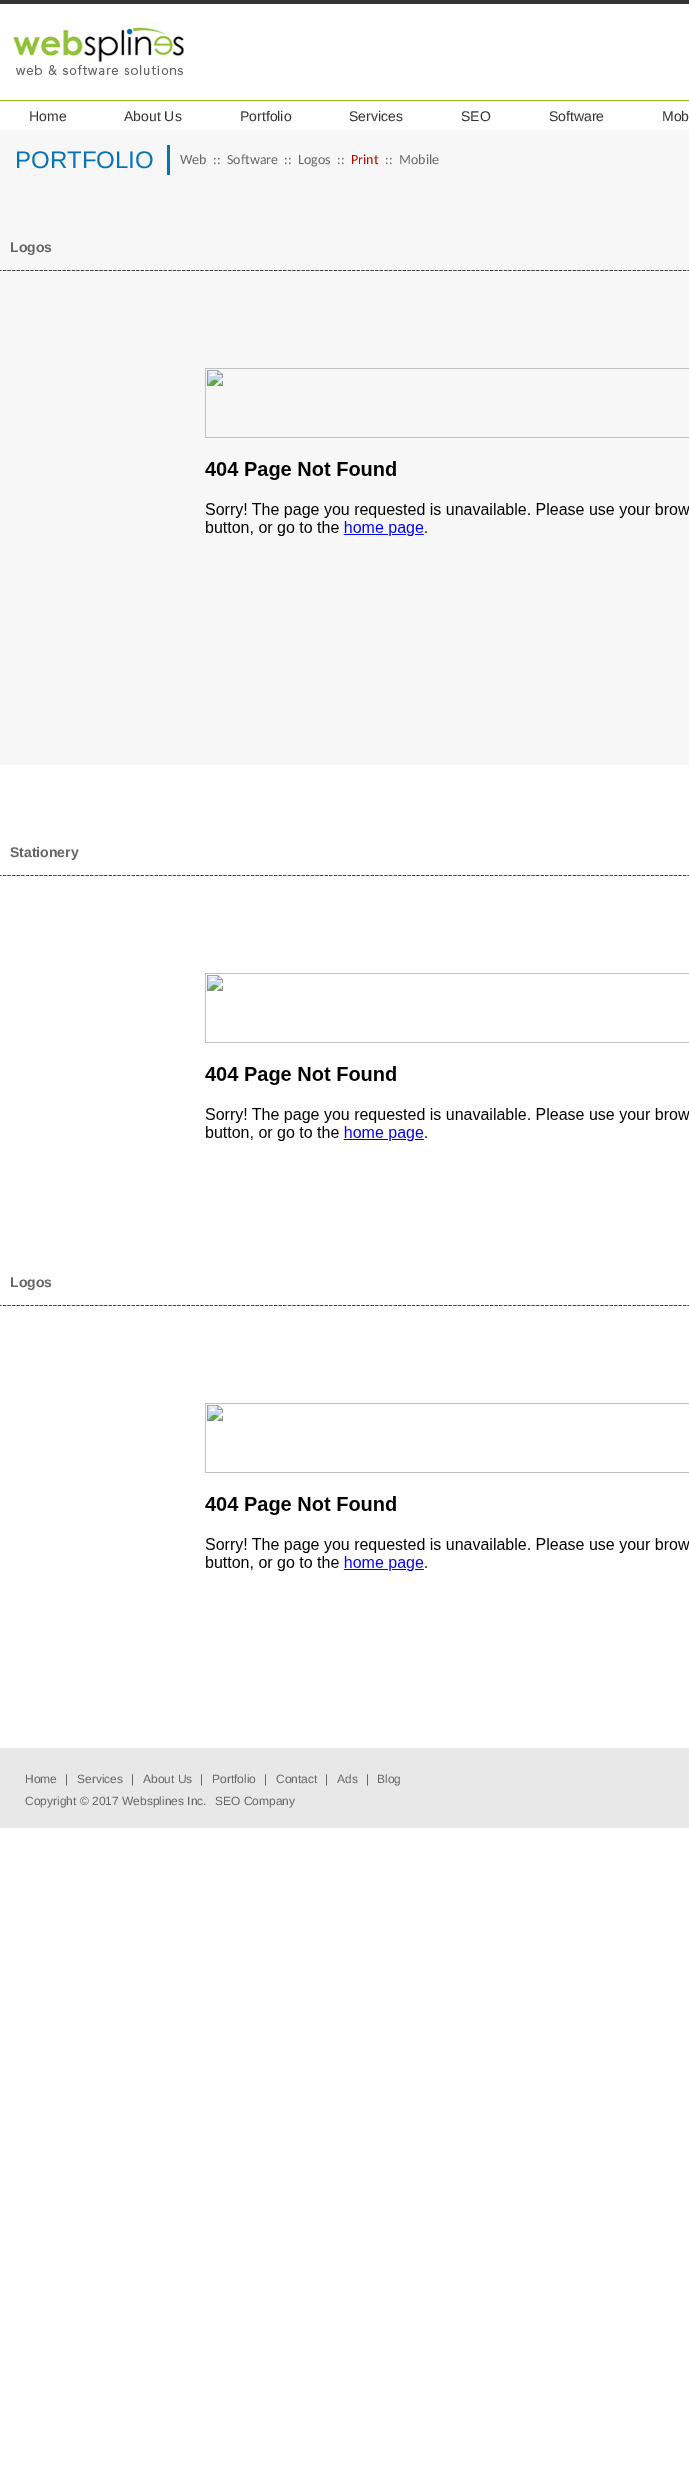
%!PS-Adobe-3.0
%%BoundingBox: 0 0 689 2480
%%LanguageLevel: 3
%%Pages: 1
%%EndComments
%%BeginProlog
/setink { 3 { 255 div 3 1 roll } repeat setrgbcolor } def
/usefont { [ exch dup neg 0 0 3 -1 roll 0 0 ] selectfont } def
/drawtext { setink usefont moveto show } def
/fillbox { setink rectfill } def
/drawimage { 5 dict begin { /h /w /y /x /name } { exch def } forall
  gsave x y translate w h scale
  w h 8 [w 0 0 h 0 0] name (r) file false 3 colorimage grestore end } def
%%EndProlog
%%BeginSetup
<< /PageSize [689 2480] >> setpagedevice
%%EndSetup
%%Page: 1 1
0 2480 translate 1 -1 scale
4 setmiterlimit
0 0 689 2480 255 255 255 fillbox
0 0 689 4 51 51 51 fillbox
(assets/img1.rgb) 13 27 171 48 drawimage
0 100 689 1 149 193 28 fillbox
(Home) 29 121 /LiberationSans-Regular 14 51 51 51 drawtext
(About Us) 124 121 /LiberationSans-Regular 14 51 51 51 drawtext
(Portfolio) 240 121 /LiberationSans-Regular 14 51 51 51 drawtext
(Services) 349 121 /LiberationSans-Regular 14 51 51 51 drawtext
(SEO) 461 121 /LiberationSans-Regular 14 51 51 51 drawtext
(Software) 549 121 /LiberationSans-Regular 14 51 51 51 drawtext
(Mob) 662 121 /LiberationSans-Regular 14 51 51 51 drawtext
0 130 689 635 247 247 247 fillbox
(PORTFOLIO) 15 168 /LiberationSans-Regular 24 6 115 182 drawtext
167 145 3 30 6 115 182 fillbox
(Web) 180 164 /Carlito-Regular 14 102 102 102 drawtext
(::) 213 164 /Carlito-Regular 14 102 102 102 drawtext
(Software) 227 164 /Carlito-Regular 14 102 102 102 drawtext
(::) 284 164 /Carlito-Regular 14 102 102 102 drawtext
(Logos  ::) 298 164 /Carlito-Regular 14 102 102 102 drawtext
(Print) 351 164 /Carlito-Regular 14 182 8 1 drawtext
(::) 385 164 /Carlito-Regular 14 102 102 102 drawtext
(Mobile) 399 164 /Carlito-Regular 14 102 102 102 drawtext
(assets/img2.rgb) 0 270 689 1 drawimage
(Logos) 10 252 /LiberationSans-Bold 14 102 102 102 drawtext
(assets/img3.rgb) 205 368 484 168 drawimage
(assets/img4.rgb) 0 875 689 1 drawimage
(Stationery) 10 857 /LiberationSans-Bold 14 102 102 102 drawtext
(assets/img5.rgb) 205 973 484 168 drawimage
(assets/img4.rgb) 0 1305 689 1 drawimage
(Logos) 10 1287 /LiberationSans-Bold 14 102 102 102 drawtext
(assets/img5.rgb) 205 1403 484 168 drawimage
0 1748 689 80 232 232 232 fillbox
(Home) 25 1783 /LiberationSans-Regular 12 102 102 102 drawtext
(|) 65 1783 /LiberationSans-Regular 12 102 102 102 drawtext
(Services) 77 1783 /LiberationSans-Regular 12 102 102 102 drawtext
(|) 131 1783 /LiberationSans-Regular 12 102 102 102 drawtext
(About Us) 143 1783 /LiberationSans-Regular 12 102 102 102 drawtext
(|) 200 1783 /LiberationSans-Regular 12 102 102 102 drawtext
(Portfolio) 212 1783 /LiberationSans-Regular 12 102 102 102 drawtext
(|) 264 1783 /LiberationSans-Regular 12 102 102 102 drawtext
(Contact) 276 1783 /LiberationSans-Regular 12 102 102 102 drawtext
(|) 325 1783 /LiberationSans-Regular 12 102 102 102 drawtext
(Ads) 337 1783 /LiberationSans-Regular 12 102 102 102 drawtext
(|) 366 1783 /LiberationSans-Regular 12 102 102 102 drawtext
(Blog) 377 1783 /LiberationSans-Regular 12 102 102 102 drawtext
(Copyright © 2017 Websplines Inc.) 25 1805 /LiberationSans-Regular 12 102 102 102 drawtext
(SEO Company) 215 1805 /LiberationSans-Regular 12 102 102 102 drawtext
showpage
%%EOF
